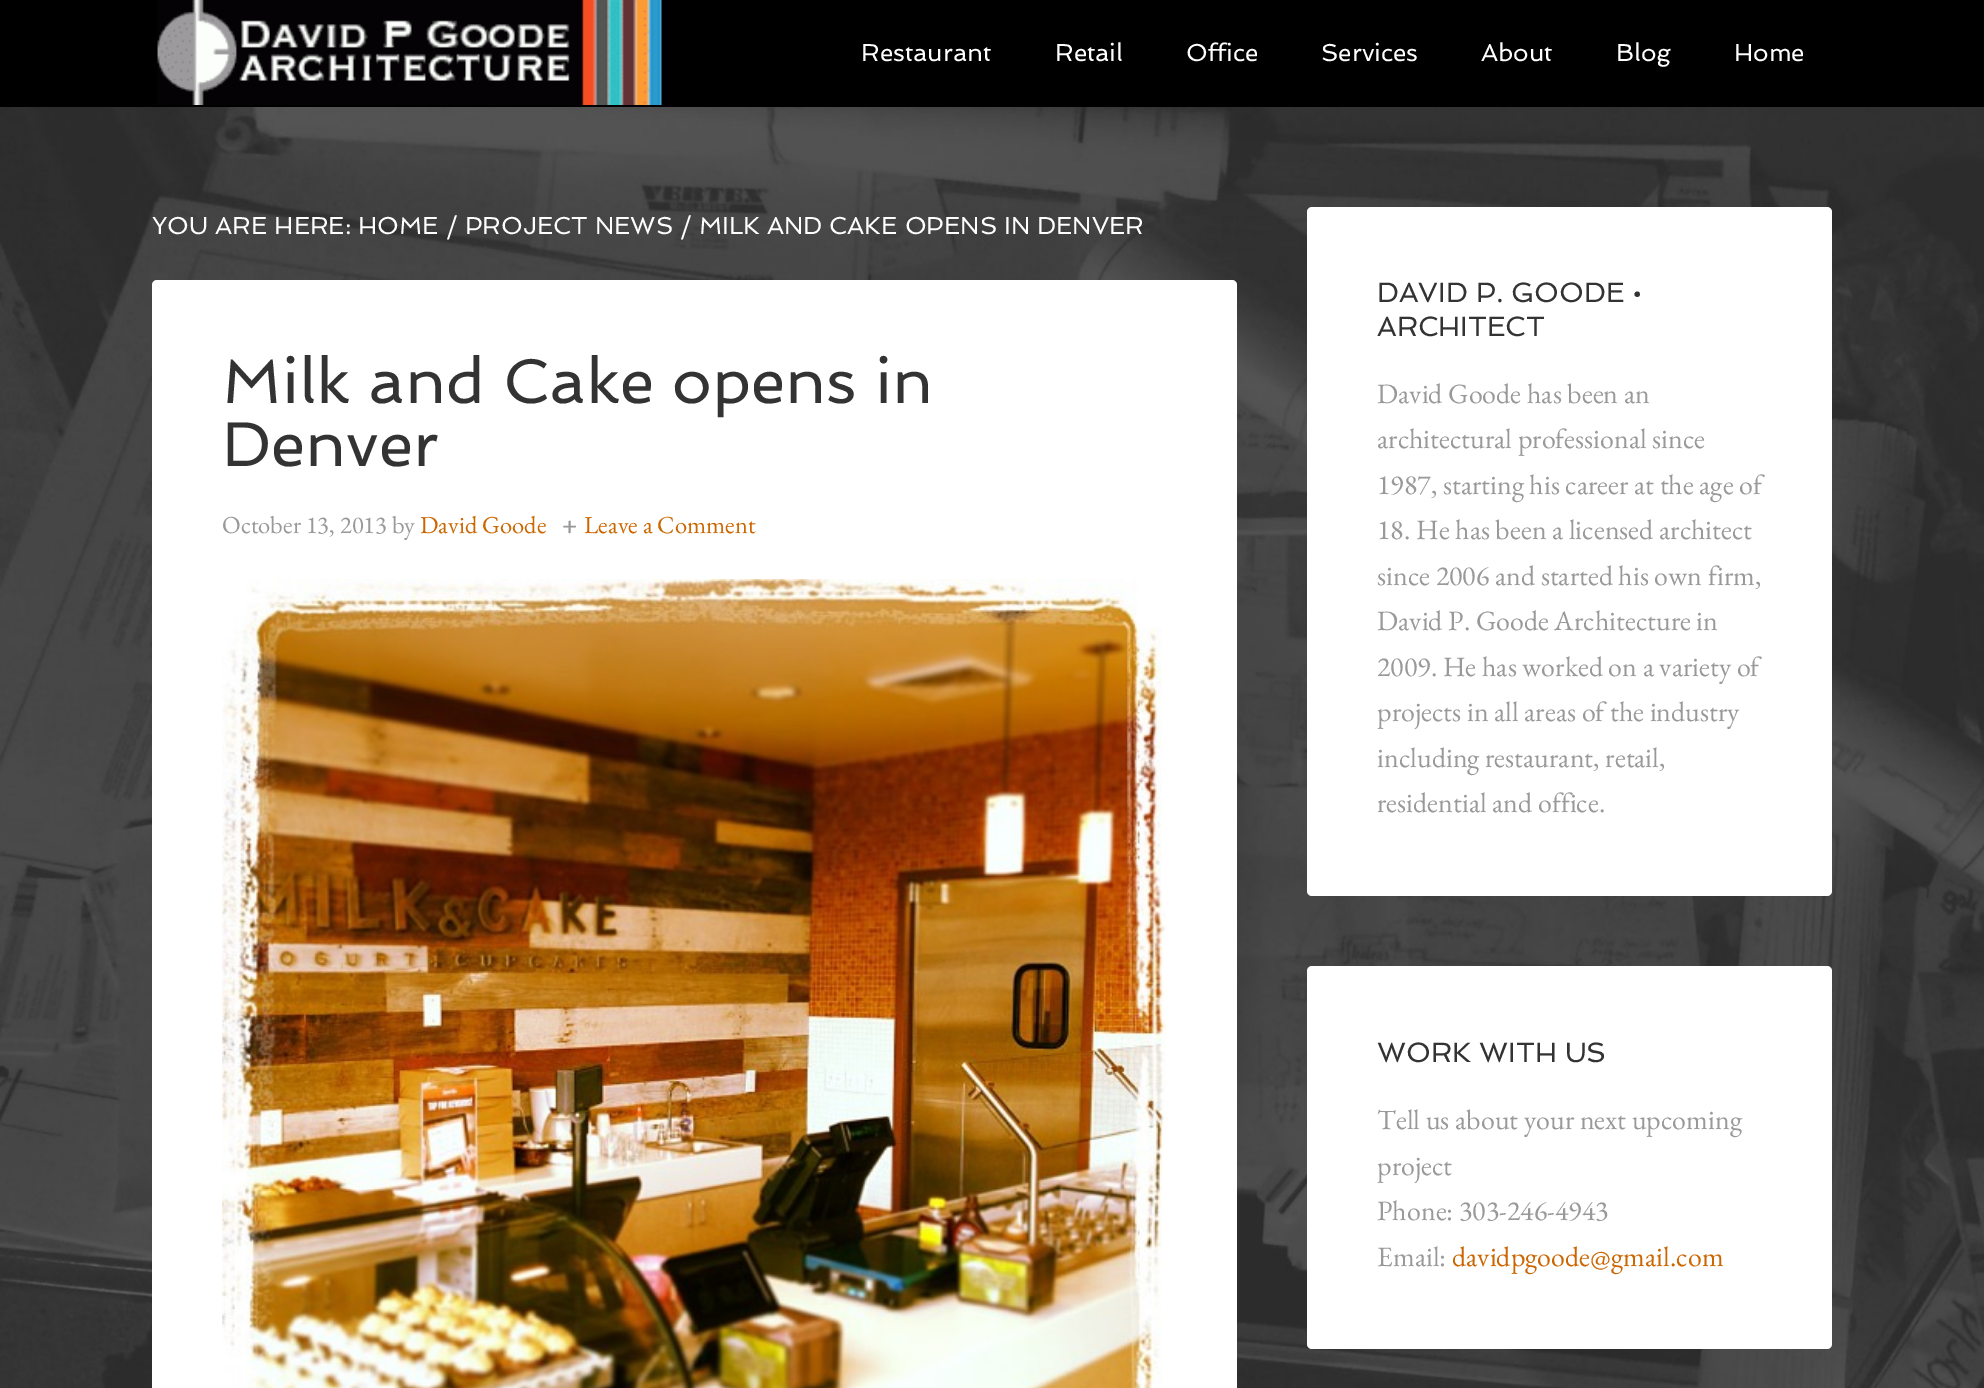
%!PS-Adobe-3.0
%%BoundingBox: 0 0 1984 1388
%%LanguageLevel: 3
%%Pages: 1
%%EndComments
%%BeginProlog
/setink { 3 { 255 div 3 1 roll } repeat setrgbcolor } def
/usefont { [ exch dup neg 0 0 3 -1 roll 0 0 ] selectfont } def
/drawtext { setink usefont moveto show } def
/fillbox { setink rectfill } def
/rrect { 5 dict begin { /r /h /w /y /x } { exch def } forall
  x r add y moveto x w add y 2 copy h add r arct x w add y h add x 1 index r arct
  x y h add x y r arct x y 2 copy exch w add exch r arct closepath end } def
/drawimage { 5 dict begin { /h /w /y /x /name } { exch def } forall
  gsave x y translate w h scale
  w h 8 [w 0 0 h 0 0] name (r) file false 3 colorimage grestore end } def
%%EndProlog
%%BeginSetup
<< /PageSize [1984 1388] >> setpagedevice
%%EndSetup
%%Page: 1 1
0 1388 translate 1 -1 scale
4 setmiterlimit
0 0 1984 1388 255 255 255 fillbox
0 0 1984 107 0 0 0 fillbox
(assets/img1.rgb) 157 0 505 105 drawimage
(Restaurant) 861 61 /Spinnaker-Regular 24.5 255 255 255 drawtext
(Retail) 1055 61 /Spinnaker-Regular 24.5 255 255 255 drawtext
(Office) 1186 61 /Spinnaker-Regular 24.5 255 255 255 drawtext
(Services) 1321 61 /Spinnaker-Regular 24.5 255 255 255 drawtext
(About) 1481 61 /Spinnaker-Regular 24.5 255 255 255 drawtext
(Blog) 1616 61 /Spinnaker-Regular 24.5 255 255 255 drawtext
(Home) 1734 61 /Spinnaker-Regular 24.5 255 255 255 drawtext
(assets/img2.rgb) 0 107 1984 1281 drawimage
(YOU ARE HERE: HOME / PROJECT NEWS / MILK AND CAKE OPENS IN DENVER) 152 234 /Spinnaker-Regular 24.5 255 255 255 drawtext
152 280 1085 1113 5 rrect fill
(Milk and Cake opens in) 222 403 /Spinnaker-Regular 63 51 51 51 drawtext
(Denver) 222 466 /Spinnaker-Regular 63 51 51 51 drawtext
(October 13, 2013 by) 222 533 /EBGaramond-Regular 24.5 153 153 153 drawtext
(David Goode) 420 533 /EBGaramond-Regular 24.5 204 102 0 drawtext
(+) 562 533 /EBGaramond-Bold 24.5 153 153 153 drawtext
(Leave a Comment) 584 533 /EBGaramond-Regular 24.5 204 102 0 drawtext
(assets/img3.rgb) 222 579 946 809 drawimage
255 255 255 setink
1307 207 525 689 5 rrect fill
(DAVID P. GOODE •) 1377 302 /Spinnaker-Regular 28 51 51 51 drawtext
(ARCHITECT) 1377 336 /Spinnaker-Regular 28 51 51 51 drawtext
(David Goode has been an) 1377 403 /EBGaramond-Regular 28 153 153 153 drawtext
(architectural professional since) 1377 448 /EBGaramond-Regular 28 153 153 153 drawtext
(1987, starting his career at the age of) 1377 494 /EBGaramond-Regular 28 153 153 153 drawtext
(18. He has been a licensed architect) 1377 539 /EBGaramond-Regular 28 153 153 153 drawtext
(since 2006 and started his own firm,) 1377 585 /EBGaramond-Regular 28 153 153 153 drawtext
(David P. Goode Architecture in) 1377 630 /EBGaramond-Regular 28 153 153 153 drawtext
(2009. He has worked on a variety of) 1377 676 /EBGaramond-Regular 28 153 153 153 drawtext
(projects in all areas of the industry) 1377 721 /EBGaramond-Regular 28 153 153 153 drawtext
(including restaurant, retail,) 1377 767 /EBGaramond-Regular 28 153 153 153 drawtext
(residential and office.) 1377 812 /EBGaramond-Regular 28 153 153 153 drawtext
255 255 255 setink
1307 966 525 383 5 rrect fill
(WORK WITH US) 1377 1062 /Spinnaker-Regular 28 51 51 51 drawtext
(Tell us about your next upcoming) 1377 1129 /EBGaramond-Regular 28 153 153 153 drawtext
(project) 1377 1175 /EBGaramond-Regular 28 153 153 153 drawtext
(Phone: 303-246-4943) 1377 1220 /EBGaramond-Regular 28 153 153 153 drawtext
(Email:) 1377 1266 /EBGaramond-Regular 28 153 153 153 drawtext
(davidpgoode@gmail.com) 1452 1266 /EBGaramond-Regular 28 204 102 0 drawtext
showpage
%%EOF
